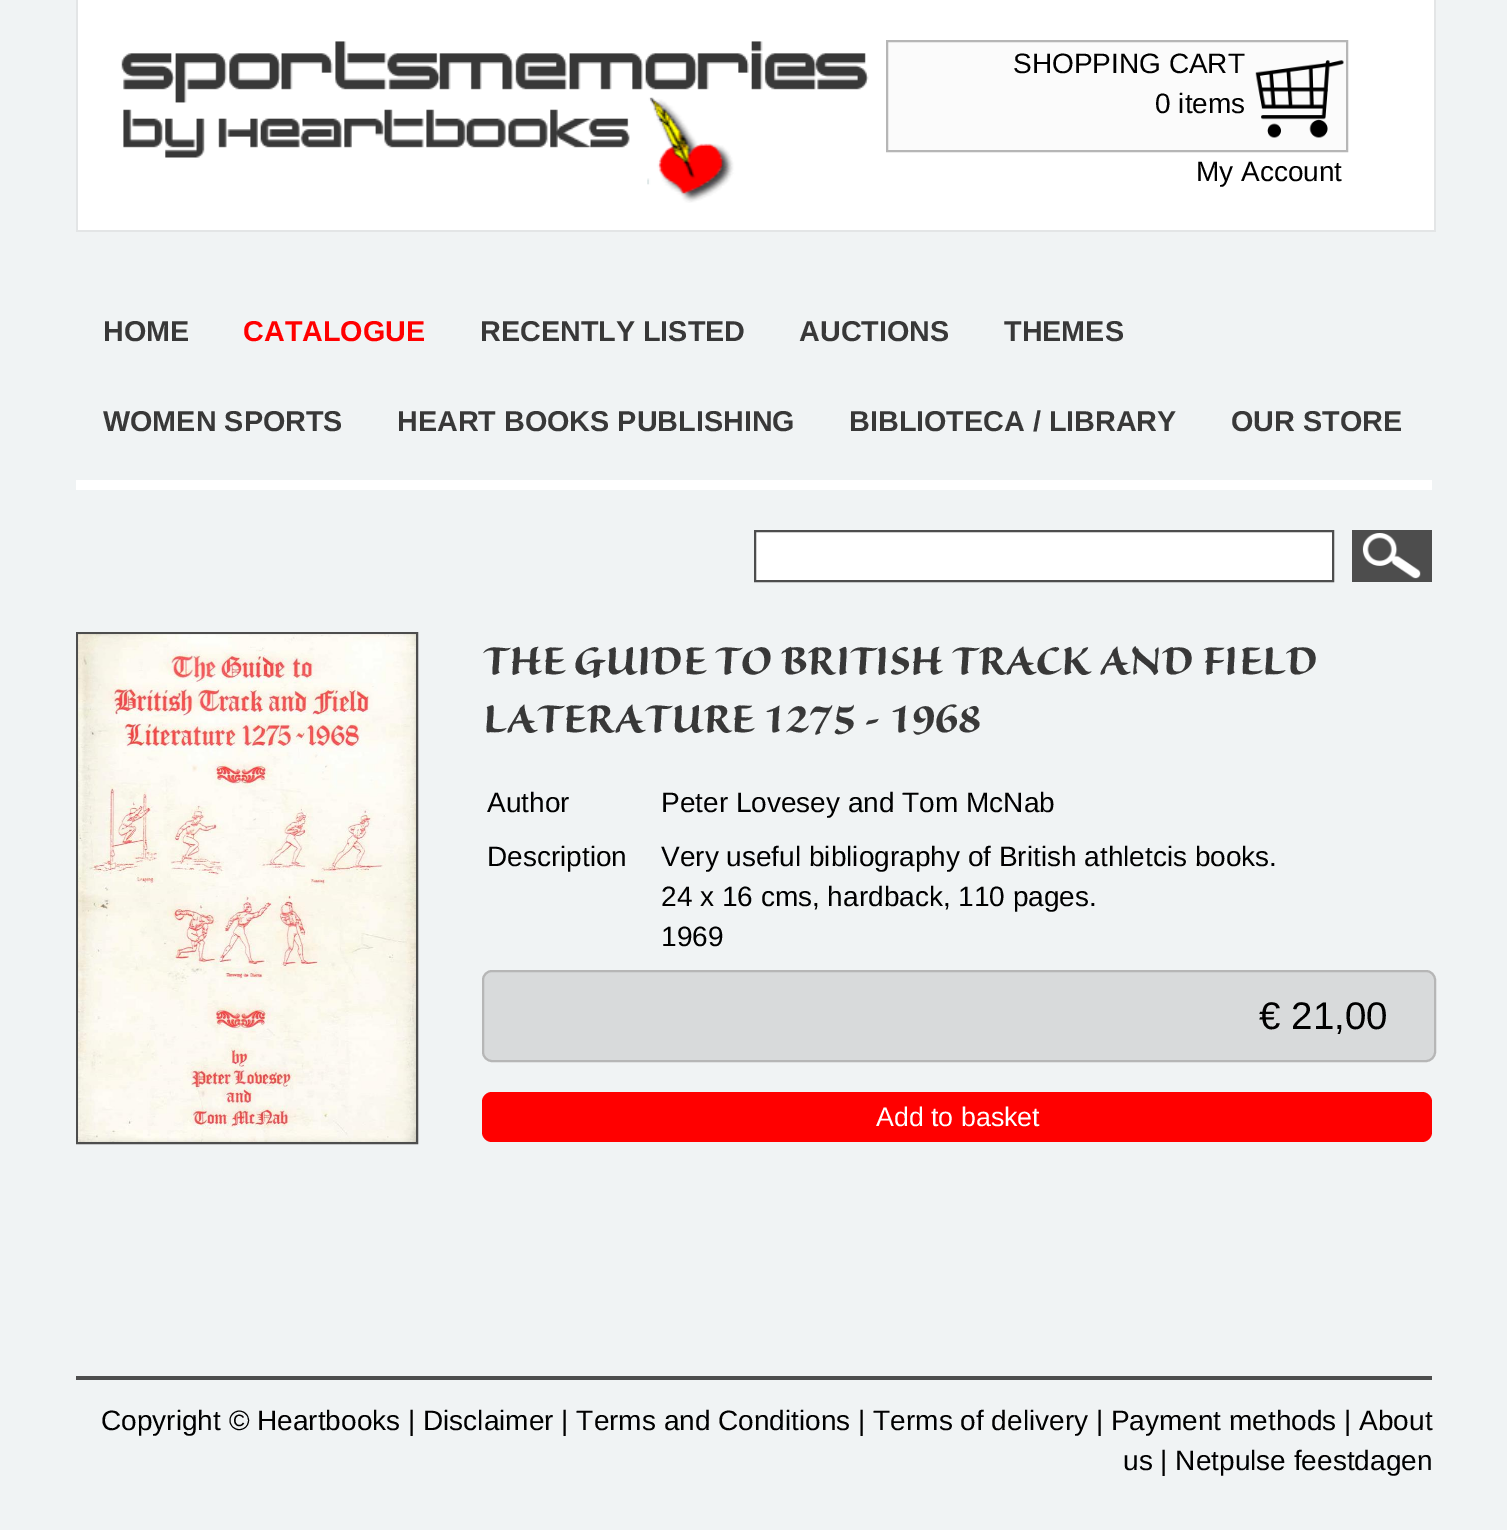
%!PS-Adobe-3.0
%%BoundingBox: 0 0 1507 1530
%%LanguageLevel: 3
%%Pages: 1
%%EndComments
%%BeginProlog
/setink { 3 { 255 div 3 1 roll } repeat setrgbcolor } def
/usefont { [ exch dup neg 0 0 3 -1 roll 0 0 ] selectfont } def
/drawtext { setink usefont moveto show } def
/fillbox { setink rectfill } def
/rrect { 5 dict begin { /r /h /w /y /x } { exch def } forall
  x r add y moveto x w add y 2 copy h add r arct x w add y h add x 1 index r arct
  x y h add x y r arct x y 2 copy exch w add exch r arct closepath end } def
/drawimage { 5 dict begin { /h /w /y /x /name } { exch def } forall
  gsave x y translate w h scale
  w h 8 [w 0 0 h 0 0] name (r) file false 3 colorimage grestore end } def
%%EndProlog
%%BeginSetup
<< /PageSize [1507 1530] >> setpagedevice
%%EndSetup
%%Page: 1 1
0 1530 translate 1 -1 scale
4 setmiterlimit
0 0 1507 1530 240 243 244 fillbox
78 0 1356 230 255 255 255 fillbox
1434 0 2 232 227 229 230 fillbox
76 230 1360 2 227 229 230 fillbox
76 0 2 232 227 229 230 fillbox
(assets/img1.rgb) 121 41 748 162 drawimage
251 251 251 setink
887 41 moveto 1347 41 lineto 1347 151 lineto 887 151 lineto closepath gsave fill grestore
182 182 182 setink
2 setlinewidth
stroke
(SHOPPING CART) 1013 73 /LiberationSans-Regular 28 0 0 0 drawtext
(0 items) 1155 113 /LiberationSans-Regular 28 0 0 0 drawtext
(assets/img2.rgb) 1255 60 89 78 drawimage
(My Account) 1196 181 /LiberationSans-Regular 28 0 0 0 drawtext
76 480 1356 10 255 255 255 fillbox
(HOME) 103 341 /LiberationSans-Bold 28.75 56 56 56 drawtext
(CATALOGUE) 243 341 /LiberationSans-Bold 28.75 255 0 0 drawtext
(RECENTLY LISTED) 480 341 /LiberationSans-Bold 28.75 56 56 56 drawtext
(AUCTIONS) 799 341 /LiberationSans-Bold 28.75 56 56 56 drawtext
(THEMES) 1004 341 /LiberationSans-Bold 28.75 56 56 56 drawtext
(WOMEN SPORTS) 103 431 /LiberationSans-Bold 28.75 56 56 56 drawtext
(HEART BOOKS PUBLISHING) 397 431 /LiberationSans-Bold 28.75 56 56 56 drawtext
(BIBLIOTECA / LIBRARY) 849 431 /LiberationSans-Bold 28.75 56 56 56 drawtext
(OUR STORE) 1231 431 /LiberationSans-Bold 28.75 56 56 56 drawtext
255 255 255 setink
755 531 moveto 1333 531 lineto 1333 581 lineto 755 581 lineto closepath gsave fill grestore
77 77 77 setink
stroke
1352 530 80 52 77 77 77 fillbox
(assets/img3.rgb) 1362 533 59 46 drawimage
77 633 340 510 rectstroke
(assets/img4.rgb) 78 634 338 508 drawimage
(THE GUIDE TO BRITISH TRACK AND FIELD) 483 674 /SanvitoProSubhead-Bold 51.25 56 56 56 drawtext
(LATERATURE 1275 - 1968) 483 732 /SanvitoProSubhead-Bold 51.25 56 56 56 drawtext
(Author) 487 812 /LiberationSans-Regular 28 0 0 0 drawtext
(Peter Lovesey and Tom McNab) 661 812 /LiberationSans-Regular 28 0 0 0 drawtext
(Description) 487 866 /LiberationSans-Regular 28 0 0 0 drawtext
(Very useful bibliography of British athletcis books.) 661 866 /LiberationSans-Regular 28 0 0 0 drawtext
(24 x 16 cms, hardback, 110 pages.) 661 906 /LiberationSans-Regular 28 0 0 0 drawtext
(1969) 661 946 /LiberationSans-Regular 28 0 0 0 drawtext
216 218 219 setink
483 971 952 90 9 rrect gsave fill grestore
182 182 182 setink
stroke
(€ 21,00) 1259 1029 /LiberationSans-Regular 38.5 0 0 0 drawtext
255 0 0 setink
482 1092 950 50 10 rrect fill
(Add to basket) 876 1126 /LiberationSans-Regular 26.75 255 255 255 drawtext
76 1376 1356 4 77 77 77 fillbox
(Copyright © Heartbooks | Disclaimer | Terms and Conditions | Terms of delivery | Payment methods | About) 101 1430 /LiberationSans-Regular 28 0 0 0 drawtext
(us | Netpulse feestdagen) 1123 1470 /LiberationSans-Regular 28 0 0 0 drawtext
showpage
%%EOF
